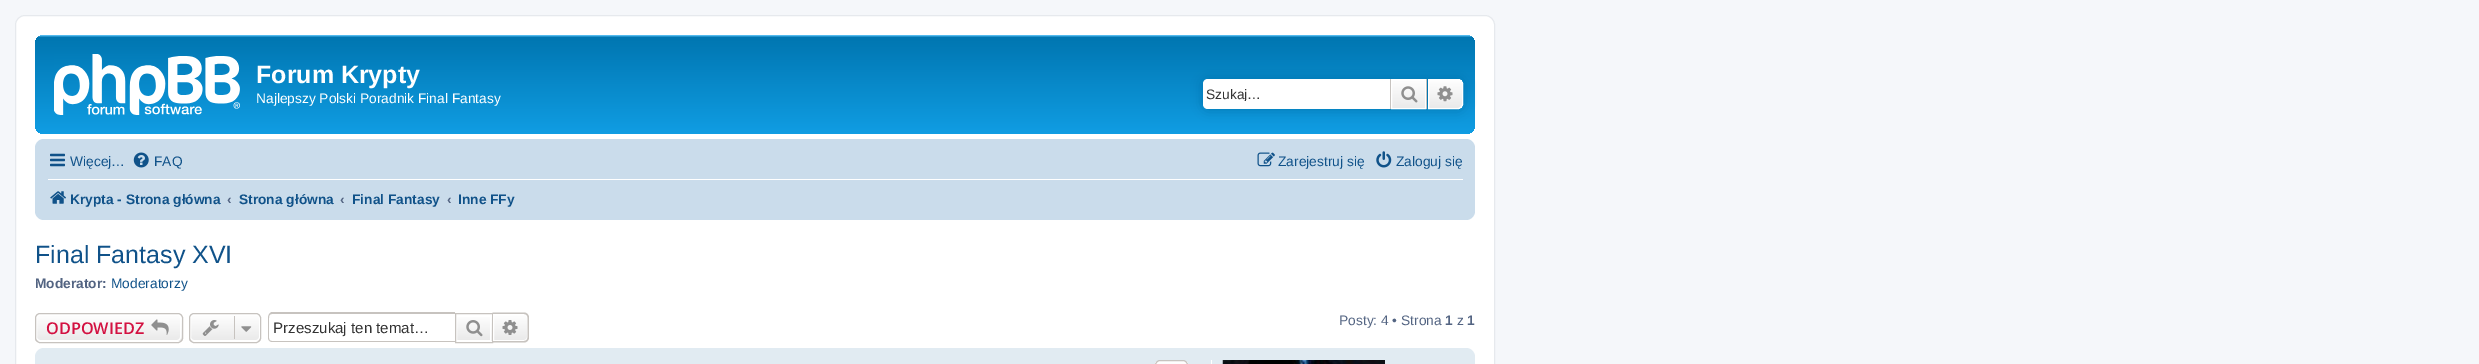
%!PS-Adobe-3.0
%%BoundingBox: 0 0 2479 364
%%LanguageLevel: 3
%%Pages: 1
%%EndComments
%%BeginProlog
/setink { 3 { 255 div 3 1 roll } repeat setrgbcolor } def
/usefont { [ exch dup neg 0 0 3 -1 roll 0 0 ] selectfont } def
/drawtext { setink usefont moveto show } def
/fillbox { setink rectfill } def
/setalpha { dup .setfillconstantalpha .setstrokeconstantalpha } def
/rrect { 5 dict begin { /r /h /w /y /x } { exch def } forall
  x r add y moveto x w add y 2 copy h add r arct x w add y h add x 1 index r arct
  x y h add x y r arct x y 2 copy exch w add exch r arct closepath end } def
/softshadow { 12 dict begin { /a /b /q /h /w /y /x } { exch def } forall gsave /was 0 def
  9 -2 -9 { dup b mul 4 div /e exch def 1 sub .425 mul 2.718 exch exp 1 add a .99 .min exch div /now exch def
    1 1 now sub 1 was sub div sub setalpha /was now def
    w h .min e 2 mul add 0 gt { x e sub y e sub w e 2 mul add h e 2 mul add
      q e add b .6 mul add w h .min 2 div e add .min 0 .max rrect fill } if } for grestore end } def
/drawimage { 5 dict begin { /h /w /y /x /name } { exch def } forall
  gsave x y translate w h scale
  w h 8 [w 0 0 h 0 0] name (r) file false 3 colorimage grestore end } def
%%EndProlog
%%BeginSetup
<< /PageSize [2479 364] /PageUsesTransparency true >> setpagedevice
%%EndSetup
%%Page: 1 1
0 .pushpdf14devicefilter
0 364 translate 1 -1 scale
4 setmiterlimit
0 0 2479 364 245 247 250 fillbox
255 255 255 setink
15.5 15.5 1479 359 9.5 rrect gsave fill grestore
230 233 237 setink
stroke
gsave 35 35 1440 99 9 rrect clip newpath
<< /ShadingType 2 /ColorSpace /DeviceRGB /Coords [755 35 755 150] /Extend [true true] /Function << /FunctionType 3 /Domain [0 1] /Functions [<< /FunctionType 2 /Domain [0 1] /C0 [0.416 0.808 1] /C1 [0 0.463 0.694] /N 1 >> << /FunctionType 2 /Domain [0 1] /C0 [0 0.463 0.694] /C1 [0.071 0.639 0.922] /N 1 >>] /Bounds [0.02] /Encode [0 1 0 1] >> >> shfill grestore
(assets/img1.rgb) 54 54 186 61 drawimage
(Forum Krypty) 256 83 /LiberationSans-Bold 25 255 255 255 drawtext
(Najlepszy Polski Poradnik Final Fantasy) 256 103 /LiberationSans-Regular 13.75 255 255 255 drawtext
0 117 176 setink
1203 79 260 30 5 6 1 softshadow
255 255 255 setink
1208 79 moveto 1390 79 lineto 1390 109 lineto 1208 109 lineto 1205 109 1203 107 1203 104 curveto 1203 84 lineto 1203 81 1205 79 1208 79 curveto closepath fill
gsave
1206 86 175 15 rectclip
(Szukaj…) 1206 99 /LiberationSans-Regular 13.75 51 51 51 drawtext
grestore
gsave 1392 80 moveto 1425 80 lineto 1425 108 lineto 1392 108 lineto closepath clip newpath
<< /ShadingType 2 /ColorSpace /DeviceRGB /Coords [1409 79 1409 109] /Extend [true true] /Function << /FunctionType 2 /Domain [0 1] /C0 [1 1 1] /C1 [0.914 0.914 0.914] /N 1 >> >> shfill grestore
1391.5 79.5 34 29 rectstroke
1426 79 1 30 199 195 191 fillbox
1390 79 1 30 199 195 191 fillbox
(assets/img2.rgb) 1401 86 17 17 drawimage
gsave 1428.5 79.5 moveto 1458 79.5 lineto 1460.5 79.5 1462.5 81.5 1462.5 84 curveto 1462.5 104 lineto 1462.5 106.5 1460.5 108.5 1458 108.5 curveto 1428.5 108.5 lineto closepath clip newpath
<< /ShadingType 2 /ColorSpace /DeviceRGB /Coords [1445 79 1445 109] /Extend [true true] /Function << /FunctionType 2 /Domain [0 1] /C0 [1 1 1] /C1 [0.914 0.914 0.914] /N 1 >> >> shfill grestore
255 255 255 setink
1428.5 79.5 moveto 1458 79.5 lineto 1460.5 79.5 1462.5 81.5 1462.5 84 curveto 1462.5 104 lineto 1462.5 106.5 1460.5 108.5 1458 108.5 curveto 1428.5 108.5 lineto closepath stroke
(assets/img3.rgb) 1437 86 16 16 drawimage
202 220 235 setink
35 139 1440 81 9 rrect fill
(assets/img4.rgb) 50 153 15 14 drawimage
(Więcej…) 70 166 /LiberationSans-Regular 13.75 16 82 137 drawtext
(assets/img5.rgb) 133 152 16 16 drawimage
(FAQ) 154 166 /LiberationSans-Regular 13.75 16 82 137 drawtext
(assets/img6.rgb) 1257 152 18 15 drawimage
(Zarejestruj się) 1278 166 /LiberationSans-Regular 13.75 16 82 137 drawtext
(assets/img7.rgb) 1376 151 16 17 drawimage
(Zaloguj się) 1396 166 /LiberationSans-Regular 13.75 16 82 137 drawtext
48 179 1415 1 255 255 255 fillbox
(assets/img8.rgb) 50 191 16 13 drawimage
(Krypta - Strona główna) 70 204 /LiberationSans-Bold 13.75 16 82 137 drawtext
(‹) 227 204 /LiberationSans-Bold 13.75 83 100 130 drawtext
(Strona główna) 239 204 /LiberationSans-Bold 13.75 16 82 137 drawtext
(‹) 340 204 /LiberationSans-Bold 13.75 83 100 130 drawtext
gsave
353 184 87 30 rectclip
(Final Fantasy) 352 204 /LiberationSans-Bold 13.75 16 82 137 drawtext
grestore
(‹) 447 204 /LiberationSans-Bold 13.75 83 100 130 drawtext
(Inne FFy) 458 204 /LiberationSans-Bold 13.75 16 82 137 drawtext
(Final Fantasy XVI) 35 263 /LiberationSans-Regular 25 16 82 137 drawtext
(Moderator:) 35 288 /LiberationSans-Bold 13.75 83 100 130 drawtext
(Moderatorzy) 111 288 /LiberationSans-Regular 13.75 16 82 137 drawtext
gsave
35 313 148 30 5 rrect clip newpath
gsave 35 314 moveto 183 314 lineto 183 341 lineto 35 341 lineto closepath clip newpath
<< /ShadingType 2 /ColorSpace /DeviceRGB /Coords [109 314 109 341] /Extend [true true] /Function << /FunctionType 2 /Domain [0 1] /C0 [1 1 1] /C1 [0.914 0.914 0.914] /N 1 >> >> shfill grestore
grestore
255 255 255 setink
36.5 314.5 144 26 3.5 rrect stroke
199 195 191 setink
35.5 313.5 147 29 4.5 rrect stroke
(ODPOWIEDZ) 46 334 /OpenSans-SemiBold 16.25 211 17 65 drawtext
(assets/img9.rgb) 151 319 18 16 drawimage
gsave
189 313 72 30 5 rrect clip newpath
gsave 189 314 moveto 261 314 lineto 261 341 lineto 189 341 lineto closepath clip newpath
<< /ShadingType 2 /ColorSpace /DeviceRGB /Coords [225 314 225 341] /Extend [true true] /Function << /FunctionType 2 /Domain [0 1] /C0 [1 1 1] /C1 [0.914 0.914 0.914] /N 1 >> >> shfill grestore
grestore
255 255 255 setink
190.5 314.5 69 26 3.5 rrect stroke
199 195 191 setink
189.5 313.5 71 29 4.5 rrect stroke
(assets/img10.rgb) 202 320 17 16 drawimage
234 316 1 23 199 195 191 fillbox
(assets/img11.rgb) 241 326 11 6 drawimage
272 312 moveto 455 312 lineto 455 342 lineto 272 342 lineto 270 342 268 340 268 338 curveto 268 318 lineto 268 315 270 312 272 312 curveto closepath 272 314 moveto 455 314 lineto 455 341 lineto 272 341 lineto 270 341 269 340 269 338 curveto 269 318 lineto 269 315 270 314 272 314 curveto closepath eofill
(Przeszukaj ten temat…) 273 333 /LiberationSans-Regular 15.1 51 51 51 drawtext
gsave 457 317 moveto 492 317 lineto 492 341 lineto 457 341 lineto closepath clip newpath
<< /ShadingType 2 /ColorSpace /DeviceRGB /Coords [474 314 474 341] /Extend [true true] /Function << /FunctionType 2 /Domain [0 1] /C0 [1 1 1] /C1 [0.914 0.914 0.914] /N 1 >> >> shfill grestore
255 255 255 setink
456.5 314.5 34 26 rectstroke
199 195 191 setink
455.5 313.5 37 29 rectstroke
(assets/img12.rgb) 466 320 17 17 drawimage
gsave 493.5 314.5 moveto 524 314.5 lineto 526 314.5 527.5 316 527.5 318 curveto 527.5 337 lineto 527.5 339 526 340.5 524 340.5 curveto 493.5 340.5 lineto closepath clip newpath
<< /ShadingType 2 /ColorSpace /DeviceRGB /Coords [510 314 510 341] /Extend [true true] /Function << /FunctionType 2 /Domain [0 1] /C0 [1 1 1] /C1 [0.914 0.914 0.914] /N 1 >> >> shfill grestore
255 255 255 setink
493.5 314.5 moveto 524 314.5 lineto 526 314.5 527.5 316 527.5 318 curveto 527.5 337 lineto 527.5 339 526 340.5 524 340.5 curveto 493.5 340.5 lineto closepath stroke
199 195 191 setink
492.5 312.5 moveto 524 312.5 lineto 526.5 312.5 529 314.5 529 317.5 curveto 529 337.5 lineto 529 340.5 526.5 342.5 524 342.5 curveto 492.5 342.5 lineto closepath 492.5 314 moveto 524 314 lineto 526 314 527.5 315.5 527.5 317.5 curveto 527.5 337.5 lineto 527.5 339.5 526 341 524 341 curveto 492.5 341 lineto closepath eofill
(assets/img13.rgb) 502 320 16 15 drawimage
(Posty: 4 • Strona) 1339 325 /LiberationSans-Regular 13.75 83 100 130 drawtext
(1) 1445 325 /LiberationSans-Bold 13.75 83 100 130 drawtext
(z) 1457 325 /LiberationSans-Regular 13.75 83 100 130 drawtext
(1) 1467 325 /LiberationSans-Bold 13.75 83 100 130 drawtext
225 235 242 setink
35 348 1440 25 9 rrect fill
gsave
1155 360 33 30 5 rrect clip newpath
gsave 1155 361 moveto 1188 361 lineto 1188 364 lineto 1155 364 lineto closepath clip newpath
<< /ShadingType 2 /ColorSpace /DeviceRGB /Coords [1171 361 1171 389] /Extend [true true] /Function << /FunctionType 2 /Domain [0 1] /C0 [1 1 1] /C1 [0.914 0.914 0.914] /N 1 >> >> shfill grestore
grestore
199 195 191 setink
1155.5 360.5 32 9 4.5 rrect stroke
1211 360 1 4 255 255 255 fillbox
(assets/img14.rgb) 1222 360 163 4 drawimage
.poppdf14devicefilter showpage
%%EOF
